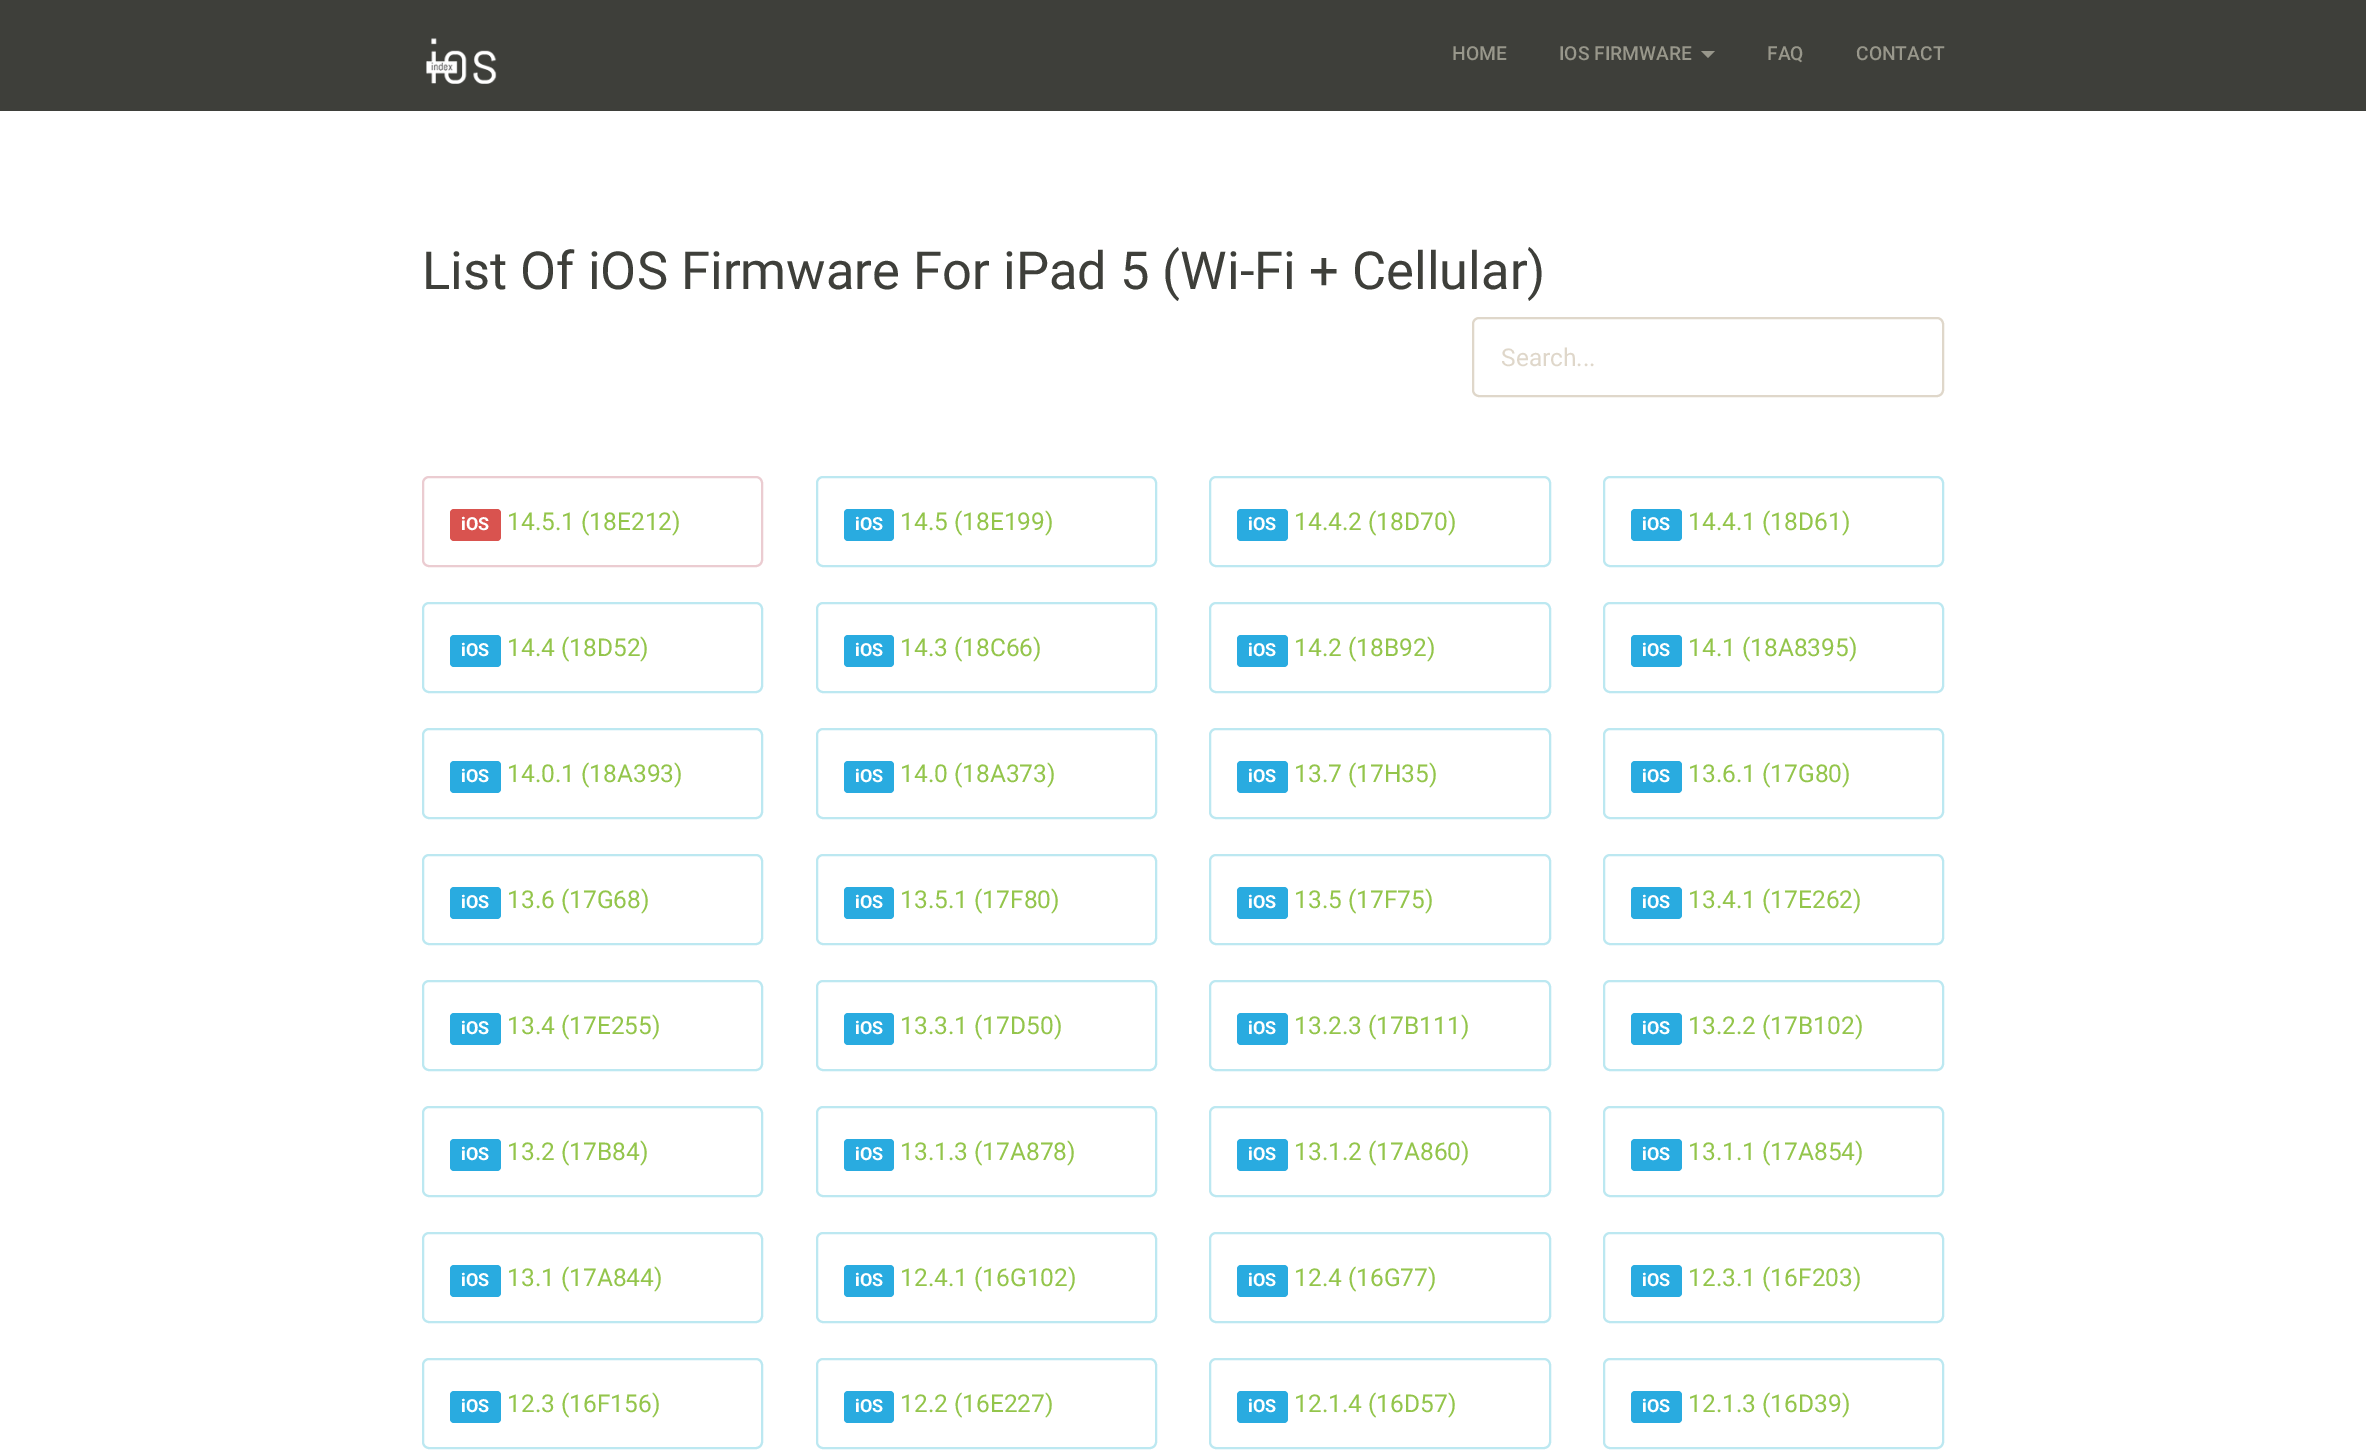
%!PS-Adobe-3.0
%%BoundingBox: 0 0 2366 1450
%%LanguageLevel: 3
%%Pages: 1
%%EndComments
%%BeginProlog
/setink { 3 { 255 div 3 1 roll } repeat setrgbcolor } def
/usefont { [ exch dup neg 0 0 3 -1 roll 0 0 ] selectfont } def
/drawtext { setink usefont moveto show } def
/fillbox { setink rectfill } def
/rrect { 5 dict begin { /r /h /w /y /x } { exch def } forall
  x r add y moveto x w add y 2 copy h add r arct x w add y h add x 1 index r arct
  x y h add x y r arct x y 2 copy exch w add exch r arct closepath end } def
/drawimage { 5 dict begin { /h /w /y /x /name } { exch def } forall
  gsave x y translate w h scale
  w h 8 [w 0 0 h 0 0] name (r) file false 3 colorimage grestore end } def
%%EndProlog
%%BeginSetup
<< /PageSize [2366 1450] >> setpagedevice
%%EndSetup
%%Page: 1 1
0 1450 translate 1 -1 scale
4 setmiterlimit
0 0 2366 1450 255 255 255 fillbox
0 0 2366 111 62 63 58 fillbox
(assets/img1.rgb) 426 38 71 46 drawimage
(HOME) 1452 60 /Roboto-Medium 19.25 152 151 139 drawtext
(IOS FIRMWARE) 1559 60 /Roboto-Medium 19.25 152 151 139 drawtext
1701 51 moveto 1715 51 lineto 1708 58 lineto closepath fill
(FAQ) 1767 60 /Roboto-Medium 19.25 152 151 139 drawtext
(CONTACT) 1856 60 /Roboto-Medium 19.25 152 151 139 drawtext
(List Of iOS Firmware For iPad 5 \(Wi-Fi + Cellular\)) 422 289 /Roboto-Regular 52.5 62 63 58 drawtext
223 215 202 setink
2 setlinewidth
1473 318 470 78 6 rrect stroke
(Search...) 1501 366 /Roboto-Regular 24.5 223 215 202 drawtext
235 204 209 setink
423 477 339 89 6 rrect stroke
217 83 79 setink
450 509 51 32 4 rrect fill
(iOS) 461 530 /Roboto-Bold 18 255 255 255 drawtext
(14.5.1 \(18E212\)) 507 530 /Roboto-Regular 24.5 147 197 75 drawtext
188 232 241 setink
817 477 339 89 6 rrect stroke
41 171 224 setink
844 509 50 32 4 rrect fill
(iOS) 855 530 /Roboto-Bold 18 255 255 255 drawtext
(14.5 \(18E199\)) 900 530 /Roboto-Regular 24.5 147 197 75 drawtext
188 232 241 setink
1210 477 340 89 6 rrect stroke
41 171 224 setink
1237 509 51 32 4 rrect fill
(iOS) 1248 530 /Roboto-Bold 18 255 255 255 drawtext
(14.4.2 \(18D70\)) 1294 530 /Roboto-Regular 24.5 147 197 75 drawtext
188 232 241 setink
1604 477 339 89 6 rrect stroke
41 171 224 setink
1631 509 51 32 4 rrect fill
(iOS) 1642 530 /Roboto-Bold 18 255 255 255 drawtext
(14.4.1 \(18D61\)) 1688 530 /Roboto-Regular 24.5 147 197 75 drawtext
188 232 241 setink
423 603 339 89 6 rrect stroke
41 171 224 setink
450 635 51 32 4 rrect fill
(iOS) 461 656 /Roboto-Bold 18 255 255 255 drawtext
(14.4 \(18D52\)) 507 656 /Roboto-Regular 24.5 147 197 75 drawtext
188 232 241 setink
817 603 339 89 6 rrect stroke
41 171 224 setink
844 635 50 32 4 rrect fill
(iOS) 855 656 /Roboto-Bold 18 255 255 255 drawtext
(14.3 \(18C66\)) 900 656 /Roboto-Regular 24.5 147 197 75 drawtext
188 232 241 setink
1210 603 340 89 6 rrect stroke
41 171 224 setink
1237 635 51 32 4 rrect fill
(iOS) 1248 656 /Roboto-Bold 18 255 255 255 drawtext
(14.2 \(18B92\)) 1294 656 /Roboto-Regular 24.5 147 197 75 drawtext
188 232 241 setink
1604 603 339 89 6 rrect stroke
41 171 224 setink
1631 635 51 32 4 rrect fill
(iOS) 1642 656 /Roboto-Bold 18 255 255 255 drawtext
(14.1 \(18A8395\)) 1688 656 /Roboto-Regular 24.5 147 197 75 drawtext
188 232 241 setink
423 729 339 89 6 rrect stroke
41 171 224 setink
450 761 51 32 4 rrect fill
(iOS) 461 782 /Roboto-Bold 18 255 255 255 drawtext
(14.0.1 \(18A393\)) 507 782 /Roboto-Regular 24.5 147 197 75 drawtext
188 232 241 setink
817 729 339 89 6 rrect stroke
41 171 224 setink
844 761 50 32 4 rrect fill
(iOS) 855 782 /Roboto-Bold 18 255 255 255 drawtext
(14.0 \(18A373\)) 900 782 /Roboto-Regular 24.5 147 197 75 drawtext
188 232 241 setink
1210 729 340 89 6 rrect stroke
41 171 224 setink
1237 761 51 32 4 rrect fill
(iOS) 1248 782 /Roboto-Bold 18 255 255 255 drawtext
(13.7 \(17H35\)) 1294 782 /Roboto-Regular 24.5 147 197 75 drawtext
188 232 241 setink
1604 729 339 89 6 rrect stroke
41 171 224 setink
1631 761 51 32 4 rrect fill
(iOS) 1642 782 /Roboto-Bold 18 255 255 255 drawtext
(13.6.1 \(17G80\)) 1688 782 /Roboto-Regular 24.5 147 197 75 drawtext
188 232 241 setink
423 855 339 89 6 rrect stroke
41 171 224 setink
450 887 51 32 4 rrect fill
(iOS) 461 908 /Roboto-Bold 18 255 255 255 drawtext
(13.6 \(17G68\)) 507 908 /Roboto-Regular 24.5 147 197 75 drawtext
188 232 241 setink
817 855 339 89 6 rrect stroke
41 171 224 setink
844 887 50 32 4 rrect fill
(iOS) 855 908 /Roboto-Bold 18 255 255 255 drawtext
(13.5.1 \(17F80\)) 900 908 /Roboto-Regular 24.5 147 197 75 drawtext
188 232 241 setink
1210 855 340 89 6 rrect stroke
41 171 224 setink
1237 887 51 32 4 rrect fill
(iOS) 1248 908 /Roboto-Bold 18 255 255 255 drawtext
(13.5 \(17F75\)) 1294 908 /Roboto-Regular 24.5 147 197 75 drawtext
188 232 241 setink
1604 855 339 89 6 rrect stroke
41 171 224 setink
1631 887 51 32 4 rrect fill
(iOS) 1642 908 /Roboto-Bold 18 255 255 255 drawtext
(13.4.1 \(17E262\)) 1688 908 /Roboto-Regular 24.5 147 197 75 drawtext
188 232 241 setink
423 981 339 89 6 rrect stroke
41 171 224 setink
450 1013 51 32 4 rrect fill
(iOS) 461 1034 /Roboto-Bold 18 255 255 255 drawtext
(13.4 \(17E255\)) 507 1034 /Roboto-Regular 24.5 147 197 75 drawtext
188 232 241 setink
817 981 339 89 6 rrect stroke
41 171 224 setink
844 1013 50 32 4 rrect fill
(iOS) 855 1034 /Roboto-Bold 18 255 255 255 drawtext
(13.3.1 \(17D50\)) 900 1034 /Roboto-Regular 24.5 147 197 75 drawtext
188 232 241 setink
1210 981 340 89 6 rrect stroke
41 171 224 setink
1237 1013 51 32 4 rrect fill
(iOS) 1248 1034 /Roboto-Bold 18 255 255 255 drawtext
(13.2.3 \(17B111\)) 1294 1034 /Roboto-Regular 24.5 147 197 75 drawtext
188 232 241 setink
1604 981 339 89 6 rrect stroke
41 171 224 setink
1631 1013 51 32 4 rrect fill
(iOS) 1642 1034 /Roboto-Bold 18 255 255 255 drawtext
(13.2.2 \(17B102\)) 1688 1034 /Roboto-Regular 24.5 147 197 75 drawtext
188 232 241 setink
423 1107 339 89 6 rrect stroke
41 171 224 setink
450 1139 51 32 4 rrect fill
(iOS) 461 1160 /Roboto-Bold 18 255 255 255 drawtext
(13.2 \(17B84\)) 507 1160 /Roboto-Regular 24.5 147 197 75 drawtext
188 232 241 setink
817 1107 339 89 6 rrect stroke
41 171 224 setink
844 1139 50 32 4 rrect fill
(iOS) 855 1160 /Roboto-Bold 18 255 255 255 drawtext
(13.1.3 \(17A878\)) 900 1160 /Roboto-Regular 24.5 147 197 75 drawtext
188 232 241 setink
1210 1107 340 89 6 rrect stroke
41 171 224 setink
1237 1139 51 32 4 rrect fill
(iOS) 1248 1160 /Roboto-Bold 18 255 255 255 drawtext
(13.1.2 \(17A860\)) 1294 1160 /Roboto-Regular 24.5 147 197 75 drawtext
188 232 241 setink
1604 1107 339 89 6 rrect stroke
41 171 224 setink
1631 1139 51 32 4 rrect fill
(iOS) 1642 1160 /Roboto-Bold 18 255 255 255 drawtext
(13.1.1 \(17A854\)) 1688 1160 /Roboto-Regular 24.5 147 197 75 drawtext
188 232 241 setink
423 1233 339 89 6 rrect stroke
41 171 224 setink
450 1265 51 32 4 rrect fill
(iOS) 461 1286 /Roboto-Bold 18 255 255 255 drawtext
(13.1 \(17A844\)) 507 1286 /Roboto-Regular 24.5 147 197 75 drawtext
188 232 241 setink
817 1233 339 89 6 rrect stroke
41 171 224 setink
844 1265 50 32 4 rrect fill
(iOS) 855 1286 /Roboto-Bold 18 255 255 255 drawtext
(12.4.1 \(16G102\)) 900 1286 /Roboto-Regular 24.5 147 197 75 drawtext
188 232 241 setink
1210 1233 340 89 6 rrect stroke
41 171 224 setink
1237 1265 51 32 4 rrect fill
(iOS) 1248 1286 /Roboto-Bold 18 255 255 255 drawtext
(12.4 \(16G77\)) 1294 1286 /Roboto-Regular 24.5 147 197 75 drawtext
188 232 241 setink
1604 1233 339 89 6 rrect stroke
41 171 224 setink
1631 1265 51 32 4 rrect fill
(iOS) 1642 1286 /Roboto-Bold 18 255 255 255 drawtext
(12.3.1 \(16F203\)) 1688 1286 /Roboto-Regular 24.5 147 197 75 drawtext
188 232 241 setink
423 1359 339 89 6 rrect stroke
41 171 224 setink
450 1391 51 32 4 rrect fill
(iOS) 461 1412 /Roboto-Bold 18 255 255 255 drawtext
(12.3 \(16F156\)) 507 1412 /Roboto-Regular 24.5 147 197 75 drawtext
188 232 241 setink
817 1359 339 89 6 rrect stroke
41 171 224 setink
844 1391 50 32 4 rrect fill
(iOS) 855 1412 /Roboto-Bold 18 255 255 255 drawtext
(12.2 \(16E227\)) 900 1412 /Roboto-Regular 24.5 147 197 75 drawtext
188 232 241 setink
1210 1359 340 89 6 rrect stroke
41 171 224 setink
1237 1391 51 32 4 rrect fill
(iOS) 1248 1412 /Roboto-Bold 18 255 255 255 drawtext
(12.1.4 \(16D57\)) 1294 1412 /Roboto-Regular 24.5 147 197 75 drawtext
188 232 241 setink
1604 1359 339 89 6 rrect stroke
41 171 224 setink
1631 1391 51 32 4 rrect fill
(iOS) 1642 1412 /Roboto-Bold 18 255 255 255 drawtext
(12.1.3 \(16D39\)) 1688 1412 /Roboto-Regular 24.5 147 197 75 drawtext
showpage
%%EOF
